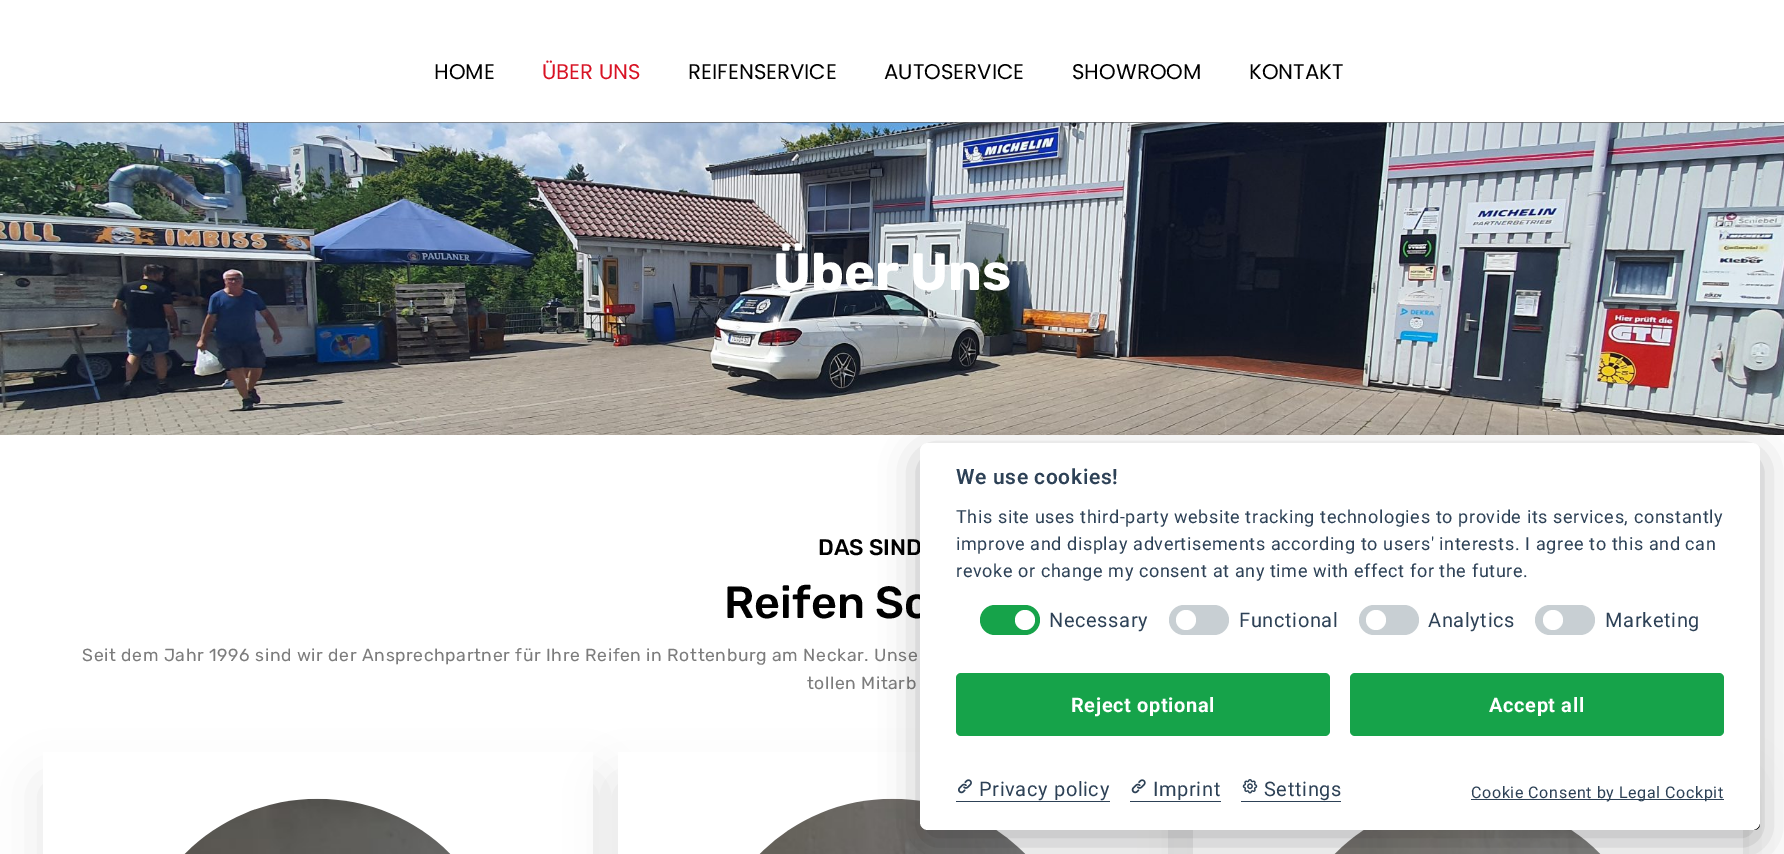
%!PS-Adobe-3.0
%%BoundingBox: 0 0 1784 854
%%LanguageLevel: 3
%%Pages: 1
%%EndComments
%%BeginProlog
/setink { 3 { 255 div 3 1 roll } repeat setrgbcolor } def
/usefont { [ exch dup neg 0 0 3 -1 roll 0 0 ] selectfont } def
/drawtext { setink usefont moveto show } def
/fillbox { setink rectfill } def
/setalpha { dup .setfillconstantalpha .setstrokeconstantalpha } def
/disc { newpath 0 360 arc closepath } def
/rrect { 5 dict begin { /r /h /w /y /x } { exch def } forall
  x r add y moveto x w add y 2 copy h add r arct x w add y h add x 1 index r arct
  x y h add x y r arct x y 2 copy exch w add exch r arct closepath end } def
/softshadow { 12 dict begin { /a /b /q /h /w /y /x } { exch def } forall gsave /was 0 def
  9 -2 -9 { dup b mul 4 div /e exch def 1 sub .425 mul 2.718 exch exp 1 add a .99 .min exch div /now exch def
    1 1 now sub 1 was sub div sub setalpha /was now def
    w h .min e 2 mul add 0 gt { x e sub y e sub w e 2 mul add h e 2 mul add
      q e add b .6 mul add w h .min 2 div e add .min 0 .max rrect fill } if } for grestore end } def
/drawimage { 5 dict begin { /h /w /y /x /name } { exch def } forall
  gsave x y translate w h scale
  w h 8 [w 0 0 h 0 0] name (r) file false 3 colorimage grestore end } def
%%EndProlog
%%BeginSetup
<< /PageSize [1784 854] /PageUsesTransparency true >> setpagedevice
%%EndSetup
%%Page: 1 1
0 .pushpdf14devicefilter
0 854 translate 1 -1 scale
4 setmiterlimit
0 0 1784 854 255 255 255 fillbox
(assets/img2.rgb) 0 122 1784 313 drawimage
(assets/img1.rgb) 0 122 1784 1 drawimage
(HOME) 434 79 /Poppins-Regular 21.25 0 0 0 drawtext
(ÜBER UNS) 542 79 /Poppins-Regular 21.25 216 19 36 drawtext
(REIFENSERVICE) 688 79 /Poppins-Regular 21.25 0 0 0 drawtext
(AUTOSERVICE) 884 79 /Poppins-Regular 21.25 0 0 0 drawtext
(SHOWROOM) 1072 79 /Poppins-Regular 21.25 0 0 0 drawtext
(KONTAKT) 1249 79 /Poppins-Regular 21.25 0 0 0 drawtext
(Über Uns) 773 290 /Rubik-Bold 52.5 255 255 255 drawtext
(DAS SIND) 818 555 /Rubik-Medium 22.5 0 0 0 drawtext
(Reifen Sc) 724 618 /Rubik-Medium 45 0 0 0 drawtext
/Rubik-Regular 17.5 usefont
124 124 124 setink
82 661 moveto 0.62 0 (Seit dem Jahr 1996 sind wir der Ansprechpartner für Ihre Reifen in Rottenburg am Neckar. Unse) ashow
807 689 moveto 0.62 0 (tollen Mitarb) ashow
0 0 0 setink
43 784 550 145 0 25 0.1 softshadow
43 752 550 102 255 255 255 fillbox
(assets/img3.rgb) 184 798 267 56 drawimage
0 0 0 setink
618 784 550 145 0 25 0.1 softshadow
618 752 550 102 255 255 255 fillbox
(assets/img4.rgb) 759 798 267 56 drawimage
0 0 0 setink
1193 784 550 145 0 25 0.1 softshadow
1193 830 550 24 255 255 255 fillbox
(assets/img5.rgb) 1334 830 267 24 drawimage
0 0 0 setink
1710 780 50 50 6 rrect fill
2 2 3 setink
920 455 840 388 8 19 0.28 softshadow
255 255 255 setink
920 443 840 387 8 rrect fill
/Roboto-SemiBold 21 usefont
45 65 86 setink
956 484 moveto 0.62 0 (We use cookies!) ashow
/Roboto-Regular 18 usefont
956 523 moveto 0.62 0 (This site uses third-party website tracking technologies to provide its services, constantly) ashow
956 550 moveto 0.62 0 (improve and display advertisements according to users' interests. I agree to this and can) ashow
956 577 moveto 0.62 0 (revoke or change my consent at any time with effect for the future.) ashow
22 163 74 setink
980 605 60 30 15 rrect fill
255 255 255 setink
1025 620 10 disc fill
/Roboto-Regular 20 usefont
45 65 86 setink
1049 627 moveto 0.62 0 (Necessary) ashow
200 207 211 setink
1169 605 60 30 15 rrect fill
255 255 255 setink
1186 620 10 disc fill
45 65 86 setink
1239 627 moveto 0.62 0 (Functional) ashow
200 207 211 setink
1359 605 60 30 15 rrect fill
255 255 255 setink
1376 620 10 disc fill
45 65 86 setink
1428 627 moveto 0.62 0 (Analytics) ashow
200 207 211 setink
1535 605 60 30 15 rrect fill
255 255 255 setink
1553 620 10 disc fill
45 65 86 setink
1605 627 moveto 0.62 0 (Marketing) ashow
22 163 74 setink
956 673 374 63 5 rrect fill
/Roboto-Bold 20 usefont
255 255 255 setink
1071 712 moveto 0.62 0 (Reject optional) ashow
22 163 74 setink
1350 673 374 63 5 rrect fill
255 255 255 setink
1489 712 moveto 0.62 0 (Accept all) ashow
956 801 154 1 45 65 86 fillbox
(assets/img6.rgb) 958 779 14 15 drawimage
/Roboto-Regular 20 usefont
979 796 moveto 0.62 0 (Privacy policy) ashow
1130 801 91 1 45 65 86 fillbox
(assets/img7.rgb) 1131 779 15 15 drawimage
1153 796 moveto 0.62 0 (Imprint) ashow
1241 801 100 1 45 65 86 fillbox
(assets/img8.rgb) 1242 779 16 15 drawimage
1264 796 moveto 0.62 0 (Settings) ashow
1471 799 253 1 45 65 86 fillbox
/Roboto-Regular 16 usefont
1471 798 moveto 0.62 0 (Cookie Consent by Legal Cockpit) ashow
.poppdf14devicefilter showpage
%%EOF
